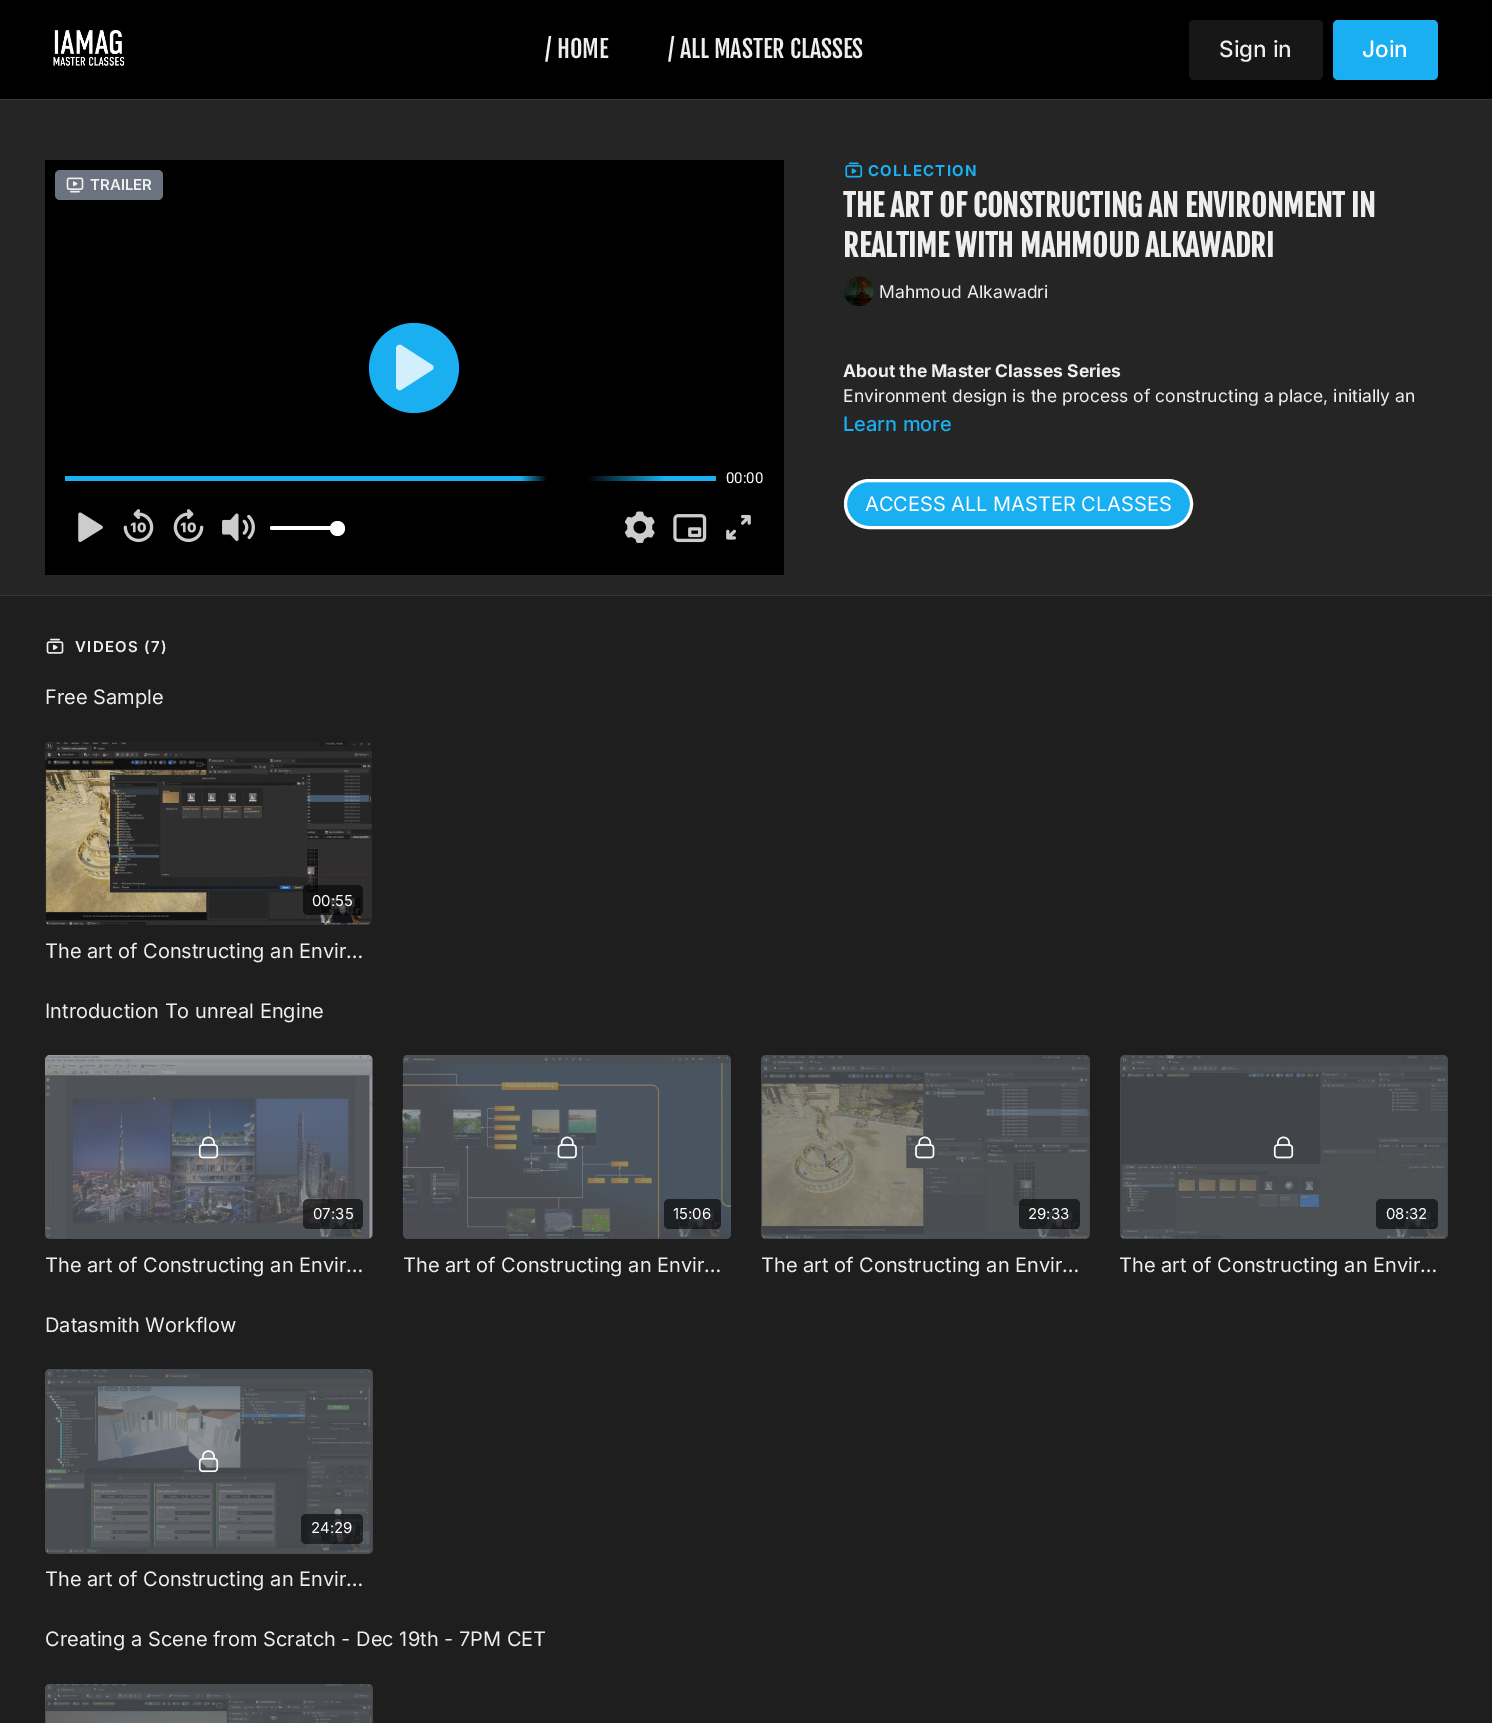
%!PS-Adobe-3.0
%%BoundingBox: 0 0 1492 1723
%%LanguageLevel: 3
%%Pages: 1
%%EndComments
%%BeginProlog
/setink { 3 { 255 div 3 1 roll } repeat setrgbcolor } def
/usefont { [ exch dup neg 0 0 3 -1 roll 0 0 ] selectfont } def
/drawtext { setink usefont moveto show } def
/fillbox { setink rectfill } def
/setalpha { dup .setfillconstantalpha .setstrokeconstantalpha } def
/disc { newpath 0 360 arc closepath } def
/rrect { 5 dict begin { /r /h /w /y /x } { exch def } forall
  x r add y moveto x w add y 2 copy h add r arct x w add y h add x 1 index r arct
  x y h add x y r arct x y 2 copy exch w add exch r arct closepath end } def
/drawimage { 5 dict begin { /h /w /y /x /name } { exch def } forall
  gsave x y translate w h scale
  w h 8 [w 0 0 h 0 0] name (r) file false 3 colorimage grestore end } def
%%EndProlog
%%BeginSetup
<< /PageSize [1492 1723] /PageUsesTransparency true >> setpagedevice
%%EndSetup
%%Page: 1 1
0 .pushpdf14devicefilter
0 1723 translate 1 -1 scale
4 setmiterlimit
0 0 1492 1723 37 37 37 fillbox
0 0 1492 99 0 0 0 fillbox
0 99 1492 1 55 55 55 fillbox
(assets/img1.rgb) 53 29 72 37 drawimage
(/ HOME) 545 58 /FjallaOne-Regular 24 238 238 238 drawtext
(/ ALL MASTER CLASSES) 668 58 /FjallaOne-Regular 24 238 238 238 drawtext
23 23 23 setink
1189 20 134 60 5 rrect fill
(Sign in) 1219 57 /Inter-Medium 22.5 238 238 238 drawtext
26 175 240 setink
1333 20 105 60 5 rrect fill
(Join) 1362 57 /Inter-Medium 22.5 255 255 255 drawtext
45 160 739 415 0 0 0 fillbox
107 114 128 setink
55 170 108 30 5 rrect fill
(assets/img2.rgb) 66 177 18 16 drawimage
(TRAILER) 90 190 /Inter-SemiBold 15 238 238 238 drawtext
26 175 240 setink
414 368 45 disc fill
209 239 252 setink
401 345 moveto 399 344 396 346 396 348 curveto 396 387 lineto 396 389 399 391 401 390 curveto 432 370 lineto 434 369 434 366 432 365 curveto closepath fill
gsave 65 476 651 5 2.5 rrect clip newpath
<< /ShadingType 2 /ColorSpace /DeviceRGB /Coords [65 481 1368 481] /Extend [true true] /Function << /FunctionType 3 /Domain [0 1] /Functions [<< /FunctionType 2 /Domain [0 1] /C0 [0.102 0.686 0.941] /C1 [0.102 0.686 0.941] /N 1 >> << /FunctionType 2 /Domain [0 1] /C0 [0.102 0.686 0.941] /C1 [0 0 0] /N 1 >> << /FunctionType 2 /Domain [0 1] /C0 [0 0 0] /C1 [0 0 0] /N 1 >> << /FunctionType 2 /Domain [0 1] /C0 [0 0 0] /C1 [0.102 0.686 0.941] /N 1 >> << /FunctionType 2 /Domain [0 1] /C0 [0.102 0.686 0.941] /C1 [0.102 0.686 0.941] /N 1 >>] /Bounds [0.35 0.37 0.4 0.46] /Encode [0 1 0 1 0 1 0 1 0 1] >> >> shfill grestore
(00:00) 726 483 /Roboto-Regular 15 255 255 255 drawtext
(assets/img3.rgb) 78 512 25 30 drawimage
(assets/img4.rgb) 123 509 31 34 drawimage
(assets/img5.rgb) 173 509 31 34 drawimage
(assets/img6.rgb) 222 513 33 28 drawimage
270 526 75 4 2 rrect fill
337.5 528.5 7.5 disc fill
(assets/img7.rgb) 625 511 30 32 drawimage
(assets/img8.rgb) 673 514 34 29 drawimage
(assets/img9.rgb) 726 514 25 26 drawimage
(assets/img10.rgb) 845 162 18 16 drawimage
/Inter-Bold 15 usefont
26 175 240 setink
868 176 moveto 1.25 0 (COLLECTION) ashow
(THE ART OF CONSTRUCTING AN ENVIRONMENT IN) 843 217 /FjallaOne-Bold 30 238 238 238 drawtext
(REALTIME WITH MAHMOUD ALKAWADRI) 843 257 /FjallaOne-Bold 30 238 238 238 drawtext
(assets/img11.rgb) 844 276 30 30 drawimage
(Mahmoud Alkawadri) 879 298 /Inter-Regular 17.5 238 238 238 drawtext
(About the Master Classes Series) 843 377 /Inter-Bold 17.5 238 238 238 drawtext
(Environment design is the process of constructing a place, initially an) 843 402 /Inter-Regular 17.5 238 238 238 drawtext
(Learn more) 843 431 /Inter-Medium 20 26 175 240 drawtext
845.5 480.5 346 47 23.5 rrect gsave fill grestore
255 255 255 setink
3 setlinewidth
stroke
(ACCESS ALL MASTER CLASSES) 865 511 /Inter-Regular 20 255 255 255 drawtext
0 596 1492 1127 30 30 30 fillbox
0 595 1492 1 55 55 55 fillbox
(assets/img12.rgb) 46 638 18 16 drawimage
/Inter-SemiBold 15 usefont
238 238 238 setink
75 652 moveto 1.25 0 (VIDEOS \(7\)) ashow
(Free Sample) 45 704 /Inter-Regular 20 238 238 238 drawtext
(assets/img13.rgb) 45 741 327 184 drawimage
0.6 setalpha
0 0 0 setink
303 885 60 30 5 rrect fill
1 setalpha
(00:55) 312 906 /Inter-Regular 15 255 255 255 drawtext
(The art of Constructing an Envir…) 45 958 /Inter-Regular 20 238 238 238 drawtext
(Introduction To unreal Engine) 45 1018 /Inter-Regular 20 238 238 238 drawtext
(assets/img14.rgb) 45 1055 328 184 drawimage
0.6 setalpha
98 103 109 setink
45 1055 328 184 5 rrect fill
1 setalpha
(assets/img15.rgb) 198 1136 21 23 drawimage
0.6 setalpha
0 0 0 setink
303 1199 60 30 5 rrect fill
1 setalpha
(07:35) 313 1219 /Inter-Regular 15 255 255 255 drawtext
(The art of Constructing an Envir…) 45 1272 /Inter-Regular 20 238 238 238 drawtext
(assets/img16.rgb) 402 1055 330 184 drawimage
0.6 setalpha
98 103 109 setink
403 1055 328 184 5 rrect fill
1 setalpha
(assets/img17.rgb) 557 1136 20 23 drawimage
0.6 setalpha
0 0 0 setink
664 1199 57 30 5 rrect fill
1 setalpha
(15:06) 673 1219 /Inter-Regular 15 255 255 255 drawtext
(The art of Constructing an Envir…) 403 1272 /Inter-Regular 20 238 238 238 drawtext
(assets/img18.rgb) 761 1055 329 184 drawimage
0.6 setalpha
98 103 109 setink
761 1055 329 184 5 rrect fill
1 setalpha
(assets/img19.rgb) 915 1136 20 23 drawimage
0.6 setalpha
0 0 0 setink
1019 1199 61 30 5 rrect fill
1 setalpha
(29:33) 1028 1219 /Inter-Regular 15 255 255 255 drawtext
(The art of Constructing an Envir…) 761 1272 /Inter-Regular 20 238 238 238 drawtext
(assets/img20.rgb) 1120 1055 327 184 drawimage
0.6 setalpha
98 103 109 setink
1120 1055 328 184 5 rrect fill
1 setalpha
(assets/img21.rgb) 1273 1136 21 23 drawimage
0.6 setalpha
0 0 0 setink
1376 1199 62 30 5 rrect fill
1 setalpha
(08:32) 1386 1219 /Inter-Regular 15 255 255 255 drawtext
(The art of Constructing an Envir…) 1119 1272 /Inter-Regular 20 238 238 238 drawtext
(Datasmith Workflow) 45 1332 /Inter-Regular 20 238 238 238 drawtext
(assets/img22.rgb) 45 1369 327 185 drawimage
0.6 setalpha
98 103 109 setink
45 1369 328 185 5 rrect fill
1 setalpha
(assets/img23.rgb) 198 1450 21 23 drawimage
0.6 setalpha
0 0 0 setink
301 1514 62 30 5 rrect fill
1 setalpha
(24:29) 311 1533 /Inter-Regular 15 255 255 255 drawtext
(The art of Constructing an Envir…) 45 1586 /Inter-Regular 20 238 238 238 drawtext
(Creating a Scene from Scratch - Dec 19th - 7PM CET) 45 1646 /Inter-Regular 20 238 238 238 drawtext
(assets/img24.rgb) 45 1684 327 39 drawimage
0.6 setalpha
98 103 109 setink
50 1684 moveto 368 1684 lineto 371 1684 373 1686 373 1689 curveto 373 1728 lineto 45 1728 lineto 45 1689 lineto 45 1686 47 1684 50 1684 curveto closepath fill
.poppdf14devicefilter showpage
%%EOF
